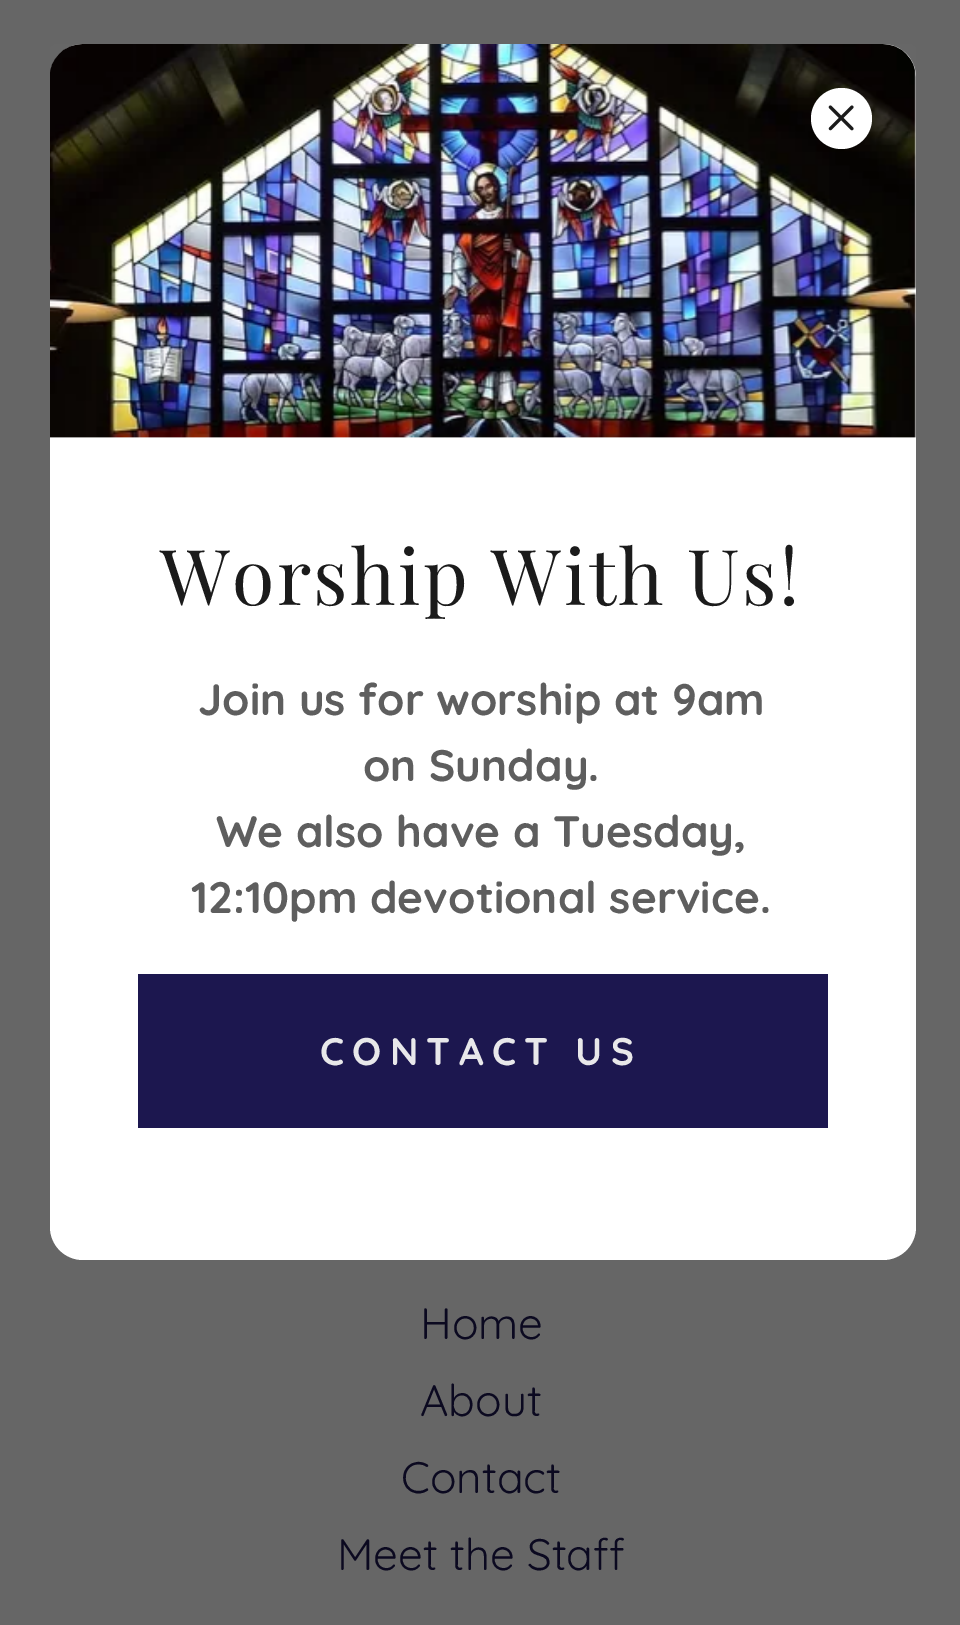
%!PS-Adobe-3.0
%%BoundingBox: 0 0 960 1625
%%LanguageLevel: 3
%%Pages: 1
%%EndComments
%%BeginProlog
/setink { 3 { 255 div 3 1 roll } repeat setrgbcolor } def
/usefont { [ exch dup neg 0 0 3 -1 roll 0 0 ] selectfont } def
/drawtext { setink usefont moveto show } def
/fillbox { setink rectfill } def
/disc { newpath 0 360 arc closepath } def
/rrect { 5 dict begin { /r /h /w /y /x } { exch def } forall
  x r add y moveto x w add y 2 copy h add r arct x w add y h add x 1 index r arct
  x y h add x y r arct x y 2 copy exch w add exch r arct closepath end } def
/drawimage { 5 dict begin { /h /w /y /x /name } { exch def } forall
  gsave x y translate w h scale
  w h 8 [w 0 0 h 0 0] name (r) file false 3 colorimage grestore end } def
%%EndProlog
%%BeginSetup
<< /PageSize [960 1625] >> setpagedevice
%%EndSetup
%%Page: 1 1
0 1625 translate 1 -1 scale
4 setmiterlimit
0 0 960 1625 102 102 102 fillbox
255 255 255 setink
50 44 866 1216 33 rrect fill
(assets/img2.rgb) 50 44 866 394 drawimage
841.5 118.5 30.5 disc fill
(assets/img1.rgb) 828 105 26 26 drawimage
/PlayfairDisplay-Regular 77 usefont
27 27 27 setink
160 605 moveto 2.4 0 (Worship With Us!) ashow
(Join us for worship at 9am) 198 715 /Quicksand-Bold 44 94 94 94 drawtext
(on Sunday.) 363 781 /Quicksand-Bold 44 94 94 94 drawtext
(We also have a Tuesday,) 216 847 /Quicksand-Bold 44 94 94 94 drawtext
(12:10pm devotional service.) 191 913 /Quicksand-Bold 44 94 94 94 drawtext
138 974 690 154 28 23 79 fillbox
/Quicksand-Bold 38.5 usefont
232 232 234 setink
320 1065 moveto 8.25 0 (CONTACT US) ashow
(Home) 420 1339 /Quicksand-Regular 44 11 9 32 drawtext
(About) 420 1416 /Quicksand-Regular 44 11 9 32 drawtext
(Contact) 401 1493 /Quicksand-Regular 44 11 9 32 drawtext
(Meet the Staff) 337 1570 /Quicksand-Regular 44 11 9 32 drawtext
showpage
%%EOF
